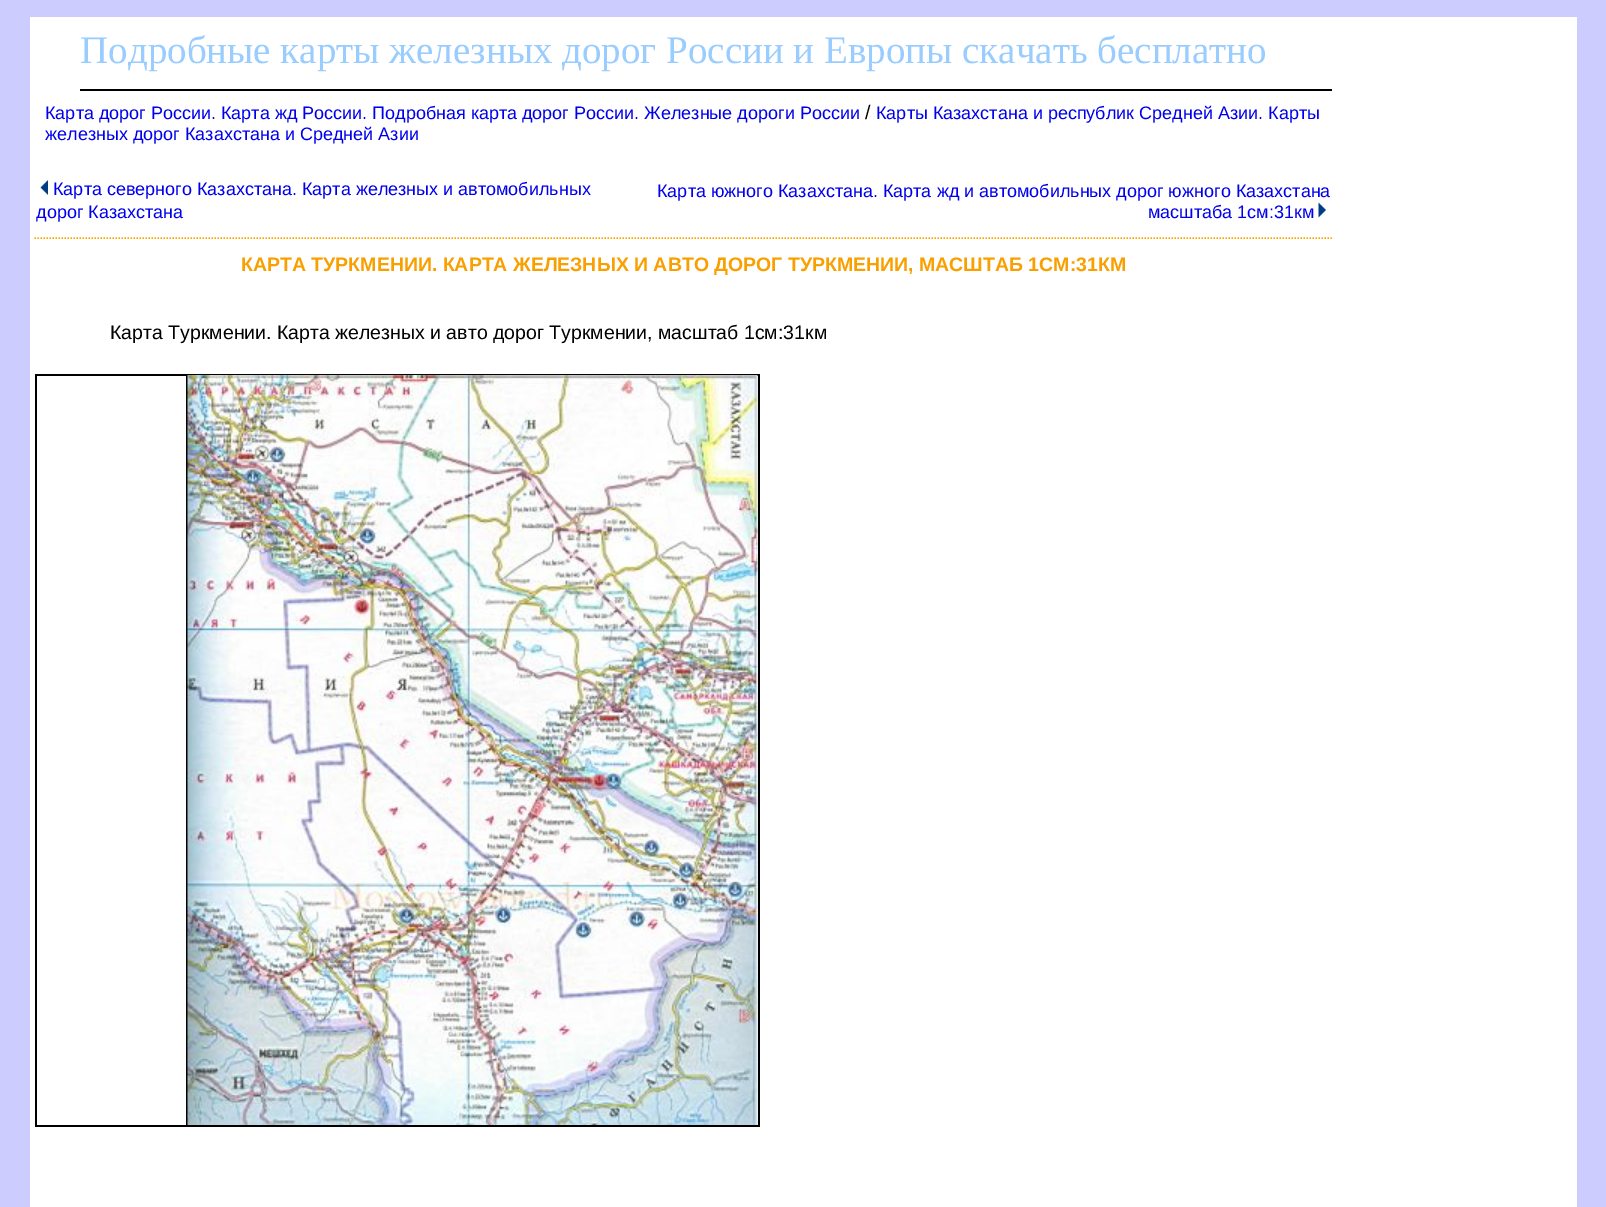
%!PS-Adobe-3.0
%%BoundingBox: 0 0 1606 1207
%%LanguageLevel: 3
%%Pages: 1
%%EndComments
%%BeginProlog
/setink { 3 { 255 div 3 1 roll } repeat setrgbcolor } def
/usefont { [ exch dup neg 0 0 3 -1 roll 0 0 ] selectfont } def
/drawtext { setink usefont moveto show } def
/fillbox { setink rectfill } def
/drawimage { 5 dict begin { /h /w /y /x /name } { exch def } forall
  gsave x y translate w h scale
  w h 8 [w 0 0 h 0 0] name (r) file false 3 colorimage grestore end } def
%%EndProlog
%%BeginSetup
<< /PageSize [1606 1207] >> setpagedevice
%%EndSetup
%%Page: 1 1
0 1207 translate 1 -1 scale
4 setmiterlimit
0 0 1606 1207 204 204 255 fillbox
30 17 1547 1190 255 255 255 fillbox
80 89 1252 2 0 0 0 fillbox
(Подробные карты железных дорог России и Европы скачать бесплатно) 80 63 /LiberationSerif-Regular 39 153 204 255 drawtext
(Карта дорог России. Карта жд России. Подробная карта дорог России. Железные дороги России) 45 119 /LiberationSans-Regular 18 0 0 238 drawtext
(/) 865 119 /LiberationSans-Regular 19.5 0 0 0 drawtext
(Карты Казахстана и республик Средней Азии. Карты) 876 119 /LiberationSans-Regular 18 0 0 238 drawtext
(железных дорог Казахстана и Средней Азии) 45 140 /LiberationSans-Regular 18 0 0 238 drawtext
(assets/img1.rgb) 40 180 8 15 drawimage
(Карта северного Казахстана. Карта железных и автомобильных) 53 195 /LiberationSans-Regular 18 0 0 238 drawtext
(дорог Казахстана) 36 218 /LiberationSans-Regular 18 0 0 238 drawtext
(Карта южного Казахстана. Карта жд и автомобильных дорог южного Казахстана) 657 197 /LiberationSans-Regular 18 0 0 238 drawtext
(масштаба 1см:31км) 1148 218 /LiberationSans-Regular 18 0 0 238 drawtext
(assets/img2.rgb) 1318 202 8 16 drawimage
255 165 0 setink
1.5 setlinewidth
[1.5 1.5] 0 setdash
34.5 238 moveto 1332 238 lineto stroke
(КАРТА ТУРКМЕНИИ. КАРТА ЖЕЛЕЗНЫХ И АВТО ДОРОГ ТУРКМЕНИИ, МАСШТАБ 1СМ:31КМ) 241 271 /LiberationSans-Bold 19.5 249 160 0 drawtext
(Карта Туркмении. Карта железных и авто дорог Туркмении, масштаб 1см:31км) 110 339 /LiberationSans-Regular 19.5 0 0 0 drawtext
186 374 573 2 0 0 0 fillbox
758 374 2 753 0 0 0 fillbox
186 1125 573 2 0 0 0 fillbox
186 374 2 753 0 0 0 fillbox
35 374 153 2 0 0 0 fillbox
35 1125 153 2 0 0 0 fillbox
35 374 2 753 0 0 0 fillbox
(assets/img3.rgb) 187 375 571 750 drawimage
showpage
%%EOF
